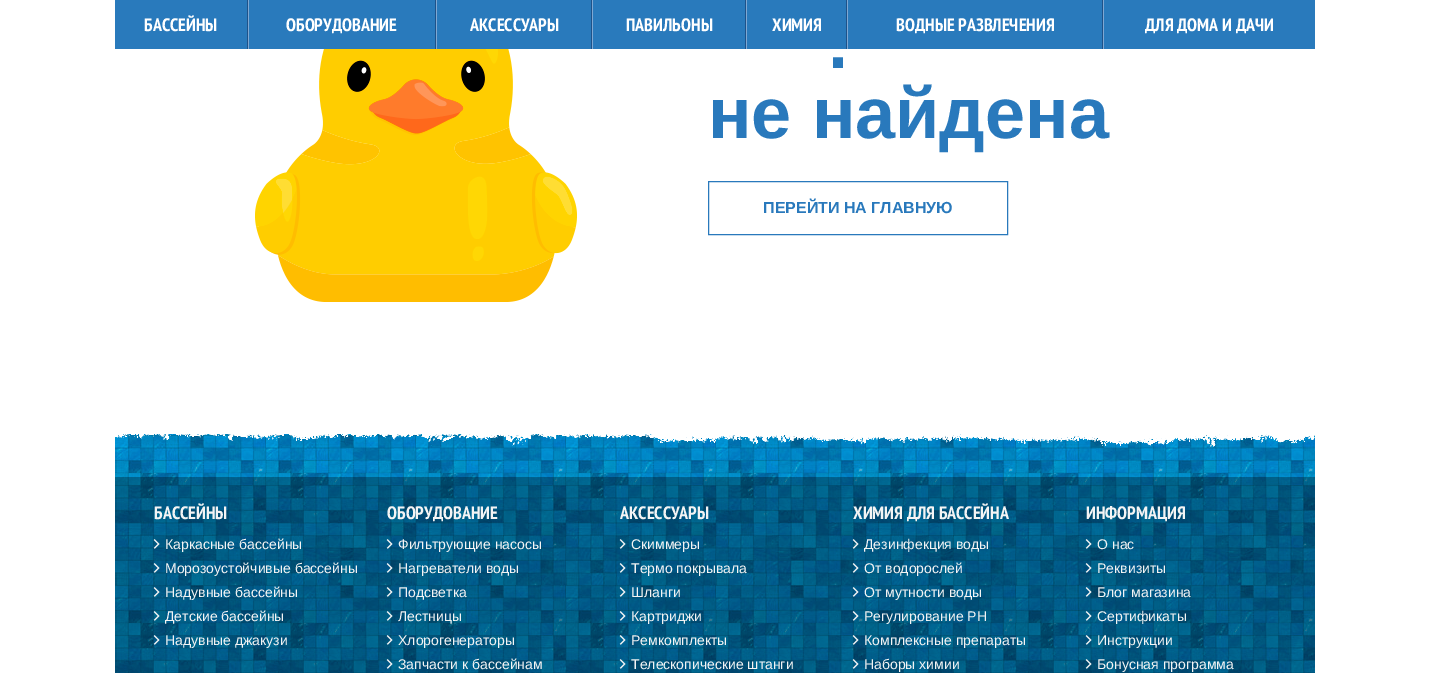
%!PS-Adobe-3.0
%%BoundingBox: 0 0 1429 673
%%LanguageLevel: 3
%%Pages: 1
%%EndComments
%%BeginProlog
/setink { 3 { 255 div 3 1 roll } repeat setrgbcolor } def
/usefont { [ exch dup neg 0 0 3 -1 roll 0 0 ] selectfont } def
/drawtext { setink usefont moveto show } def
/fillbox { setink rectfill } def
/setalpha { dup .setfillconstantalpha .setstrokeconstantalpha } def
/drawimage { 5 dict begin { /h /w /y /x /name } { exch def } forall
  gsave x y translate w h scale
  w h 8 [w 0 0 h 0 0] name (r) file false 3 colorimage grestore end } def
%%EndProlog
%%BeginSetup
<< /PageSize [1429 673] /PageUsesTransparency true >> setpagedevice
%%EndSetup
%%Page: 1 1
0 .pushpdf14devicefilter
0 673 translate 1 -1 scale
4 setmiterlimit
0 0 1429 673 255 255 255 fillbox
115 0 1200 49 41 122 188 fillbox
247 0 1 49 30 82 137 fillbox
(БАССЕЙНЫ) 144 31 /PTSansNarrow-Bold 18 255 255 255 drawtext
435 0 1 49 30 82 137 fillbox
248 0 1 49 127 168 211 fillbox
(ОБОРУДОВАНИЕ) 286 31 /PTSansNarrow-Bold 18 255 255 255 drawtext
591 0 1 49 30 82 137 fillbox
436 0 1 49 127 168 211 fillbox
(АКСЕССУАРЫ) 470 31 /PTSansNarrow-Bold 18 255 255 255 drawtext
745 0 1 49 30 82 137 fillbox
592 0 1 49 127 168 211 fillbox
(ПАВИЛЬОНЫ) 626 31 /PTSansNarrow-Bold 18 255 255 255 drawtext
846 0 1 49 30 82 137 fillbox
746 0 1 49 127 168 211 fillbox
(ХИМИЯ) 772 31 /PTSansNarrow-Bold 18 255 255 255 drawtext
1102 0 1 49 30 82 137 fillbox
847 0 1 49 127 168 211 fillbox
(ВОДНЫЕ РАЗВЛЕЧЕНИЯ) 896 31 /PTSansNarrow-Bold 18 255 255 255 drawtext
1103 0 1 49 127 168 211 fillbox
(ДЛЯ ДОМА И ДАЧИ) 1145 31 /PTSansNarrow-Bold 18 255 255 255 drawtext
(assets/img1.rgb) 255 49 322 253 drawimage
(.) 828 68 /LiberationSans-Bold 72 41 121 188 drawtext
(не найдена) 708 138 /LiberationSans-Bold 72 41 121 188 drawtext
708.5 181.5 299 53 rectstroke
(ПЕРЕЙТИ НА ГЛАВНУЮ) 763 213 /LiberationSans-Bold 16 41 121 188 drawtext
(assets/img2.rgb) 115 430 1200 243 drawimage
0.3 setalpha
115 477 1200 196 0 0 0 fillbox
1 setalpha
(БАССЕЙНЫ) 154 519 /PTSansNarrow-Bold 18 244 244 244 drawtext
(1) 151 549 /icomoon-Regular 11 244 244 244 drawtext
(Каркасные бассейны) 165 549 /LiberationSans-Regular 14 244 244 244 drawtext
(1) 151 573 /icomoon-Regular 11 244 244 244 drawtext
(Морозоустойчивые бассейны) 165 573 /LiberationSans-Regular 14 244 244 244 drawtext
(1) 151 597 /icomoon-Regular 11 244 244 244 drawtext
(Надувные бассейны) 165 597 /LiberationSans-Regular 14 244 244 244 drawtext
(1) 151 621 /icomoon-Regular 11 244 244 244 drawtext
(Детские бассейны) 165 621 /LiberationSans-Regular 14 244 244 244 drawtext
(1) 151 645 /icomoon-Regular 11 244 244 244 drawtext
(Надувные джакузи) 165 645 /LiberationSans-Regular 14 244 244 244 drawtext
(ОБОРУДОВАНИЕ) 387 519 /PTSansNarrow-Bold 18 244 244 244 drawtext
(1) 384 549 /icomoon-Regular 11 244 244 244 drawtext
(Фильтрующие насосы) 398 549 /LiberationSans-Regular 14 244 244 244 drawtext
(1) 384 573 /icomoon-Regular 11 244 244 244 drawtext
(Нагреватели воды) 398 573 /LiberationSans-Regular 14 244 244 244 drawtext
(1) 384 597 /icomoon-Regular 11 244 244 244 drawtext
(Подсветка) 398 597 /LiberationSans-Regular 14 244 244 244 drawtext
(1) 384 621 /icomoon-Regular 11 244 244 244 drawtext
(Лестницы) 398 621 /LiberationSans-Regular 14 244 244 244 drawtext
(1) 384 645 /icomoon-Regular 11 244 244 244 drawtext
(Хлорогенераторы) 398 645 /LiberationSans-Regular 14 244 244 244 drawtext
(1) 384 669 /icomoon-Regular 11 244 244 244 drawtext
(Запчасти к бассейнам) 398 669 /LiberationSans-Regular 14 244 244 244 drawtext
(АКСЕССУАРЫ) 620 519 /PTSansNarrow-Bold 18 244 244 244 drawtext
(1) 617 549 /icomoon-Regular 11 244 244 244 drawtext
(Скиммеры) 631 549 /LiberationSans-Regular 14 244 244 244 drawtext
(1) 617 573 /icomoon-Regular 11 244 244 244 drawtext
(Термо покрывала) 631 573 /LiberationSans-Regular 14 244 244 244 drawtext
(1) 617 597 /icomoon-Regular 11 244 244 244 drawtext
(Шланги) 631 597 /LiberationSans-Regular 14 244 244 244 drawtext
(1) 617 621 /icomoon-Regular 11 244 244 244 drawtext
(Картриджи) 631 621 /LiberationSans-Regular 14 244 244 244 drawtext
(1) 617 645 /icomoon-Regular 11 244 244 244 drawtext
(Ремкомплекты) 631 645 /LiberationSans-Regular 14 244 244 244 drawtext
(1) 617 669 /icomoon-Regular 11 244 244 244 drawtext
(Телескопические штанги) 631 669 /LiberationSans-Regular 14 244 244 244 drawtext
(ХИМИЯ ДЛЯ БАССЕЙНА) 853 519 /PTSansNarrow-Bold 18 244 244 244 drawtext
(1) 850 549 /icomoon-Regular 11 244 244 244 drawtext
(Дезинфекция воды) 864 549 /LiberationSans-Regular 14 244 244 244 drawtext
(1) 850 573 /icomoon-Regular 11 244 244 244 drawtext
(От водорослей) 864 573 /LiberationSans-Regular 14 244 244 244 drawtext
(1) 850 597 /icomoon-Regular 11 244 244 244 drawtext
(От мутности воды) 864 597 /LiberationSans-Regular 14 244 244 244 drawtext
(1) 850 621 /icomoon-Regular 11 244 244 244 drawtext
(Регулирование PH) 864 621 /LiberationSans-Regular 14 244 244 244 drawtext
(1) 850 645 /icomoon-Regular 11 244 244 244 drawtext
(Комплексные препараты) 864 645 /LiberationSans-Regular 14 244 244 244 drawtext
(1) 850 669 /icomoon-Regular 11 244 244 244 drawtext
(Наборы химии) 864 669 /LiberationSans-Regular 14 244 244 244 drawtext
(ИНФОРМАЦИЯ) 1086 519 /PTSansNarrow-Bold 18 244 244 244 drawtext
(1) 1083 549 /icomoon-Regular 11 244 244 244 drawtext
(О нас) 1097 549 /LiberationSans-Regular 14 244 244 244 drawtext
(1) 1083 573 /icomoon-Regular 11 244 244 244 drawtext
(Реквизиты) 1097 573 /LiberationSans-Regular 14 244 244 244 drawtext
(1) 1083 597 /icomoon-Regular 11 244 244 244 drawtext
(Блог магазина) 1097 597 /LiberationSans-Regular 14 244 244 244 drawtext
(1) 1083 621 /icomoon-Regular 11 244 244 244 drawtext
(Сертификаты) 1097 621 /LiberationSans-Regular 14 244 244 244 drawtext
(1) 1083 645 /icomoon-Regular 11 244 244 244 drawtext
(Инструкции) 1097 645 /LiberationSans-Regular 14 244 244 244 drawtext
(1) 1083 669 /icomoon-Regular 11 244 244 244 drawtext
(Бонусная программа) 1097 669 /LiberationSans-Regular 14 244 244 244 drawtext
.poppdf14devicefilter showpage
%%EOF
